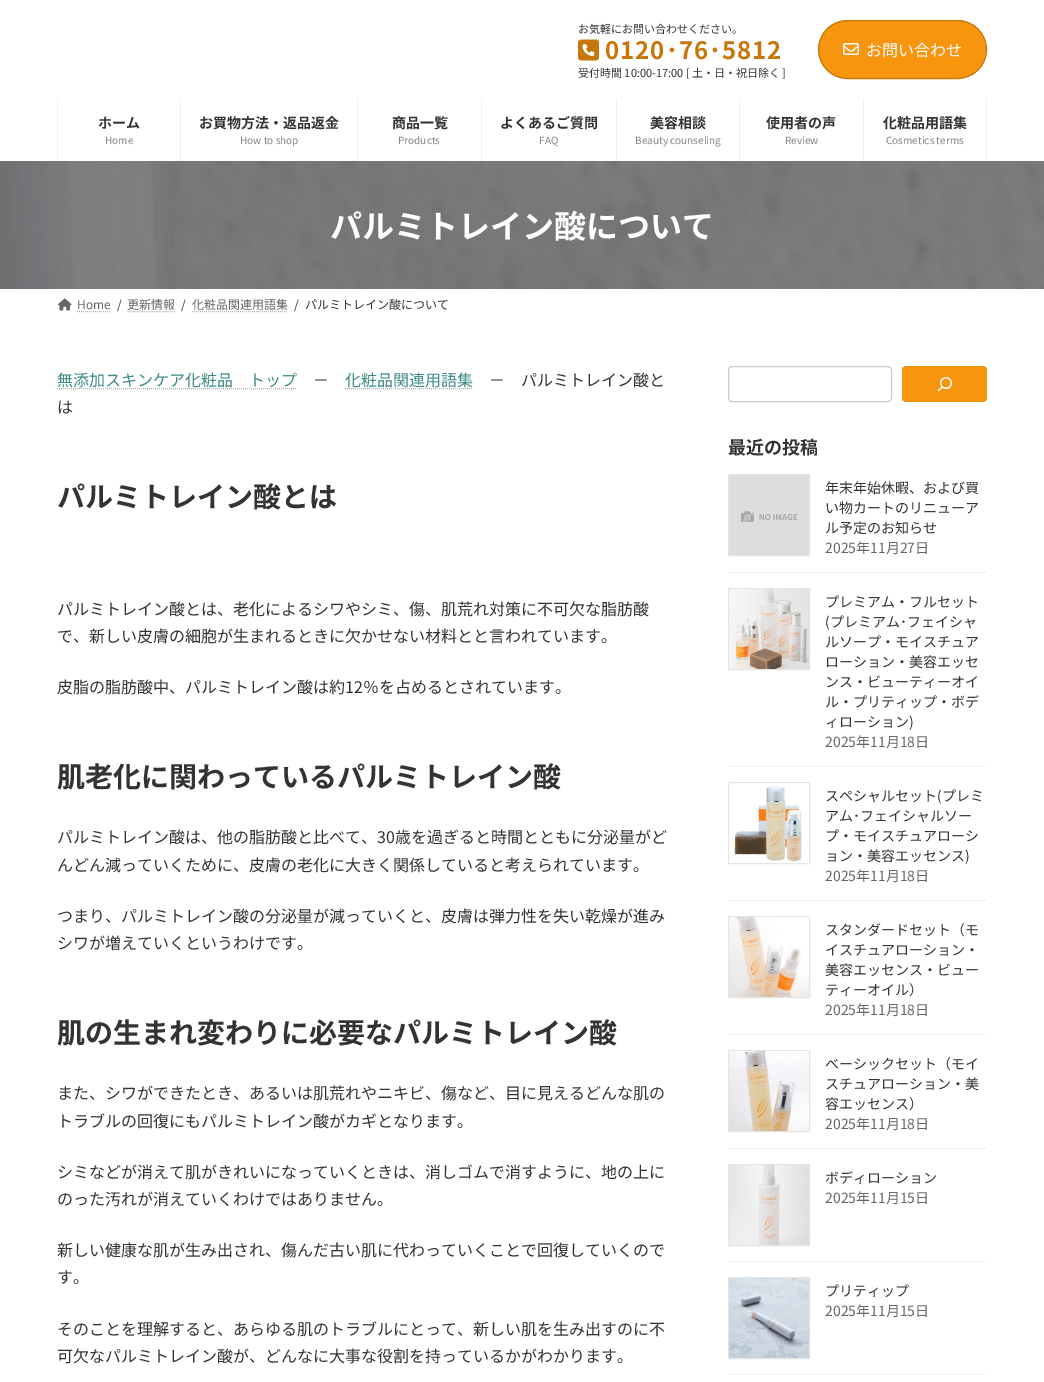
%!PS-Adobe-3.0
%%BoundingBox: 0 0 1044 1382
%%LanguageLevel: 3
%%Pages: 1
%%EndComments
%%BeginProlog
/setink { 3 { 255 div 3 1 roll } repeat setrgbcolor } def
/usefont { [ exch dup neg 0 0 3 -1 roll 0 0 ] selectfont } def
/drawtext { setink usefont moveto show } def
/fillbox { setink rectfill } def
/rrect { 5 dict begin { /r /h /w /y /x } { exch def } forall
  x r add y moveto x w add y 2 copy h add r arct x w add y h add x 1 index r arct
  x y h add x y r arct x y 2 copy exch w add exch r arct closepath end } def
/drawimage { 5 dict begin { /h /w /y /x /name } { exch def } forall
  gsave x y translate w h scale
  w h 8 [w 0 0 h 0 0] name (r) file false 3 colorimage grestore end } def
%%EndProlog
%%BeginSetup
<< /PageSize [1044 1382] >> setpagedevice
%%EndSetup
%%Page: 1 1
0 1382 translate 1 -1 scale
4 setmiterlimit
0 0 1044 1382 255 255 255 fillbox
(お気軽にお問い合わせください。) 578 33 /NotoSansJP-Regular 11 51 51 51 drawtext
(assets/img1.rgb) 578 39 21 22 drawimage
/NotoSansJP-Bold 24 usefont
198 119 11 setink
605 59 moveto 1 0 (0120･76･5812) ashow
(受付時間 10:00-17:00 [ 土・日・祝日除く ]) 578 77 /NotoSansJP-Regular 11 51 51 51 drawtext
247 149 14 setink
818.5 20.5 168 58 29 rrect gsave fill grestore
198 119 11 setink
stroke
(assets/img2.rgb) 843 43 16 12 drawimage
(お問い合わせ) 866 56 /NotoSansJP-Regular 16 255 255 255 drawtext
180 99 1 62 240 240 240 fillbox
57 99 1 62 240 240 240 fillbox
(ホーム) 98 128 /NotoSansJP-Bold 14 51 51 51 drawtext
(Home) 105 144 /NotoSansJP-Regular 10 133 133 133 drawtext
357 99 1 62 240 240 240 fillbox
(お買物方法・返品返金) 199 128 /NotoSansJP-Bold 14 51 51 51 drawtext
(How to shop) 240 144 /NotoSansJP-Regular 10 133 133 133 drawtext
481 99 1 62 240 240 240 fillbox
(商品一覧) 392 128 /NotoSansJP-Bold 14 51 51 51 drawtext
(Products) 398 144 /NotoSansJP-Regular 10 133 133 133 drawtext
616 99 1 62 240 240 240 fillbox
(よくあるご質問) 500 128 /NotoSansJP-Bold 14 51 51 51 drawtext
(FAQ) 539 144 /NotoSansJP-Regular 10 133 133 133 drawtext
739 99 1 62 240 240 240 fillbox
(美容相談) 650 128 /NotoSansJP-Bold 14 51 51 51 drawtext
(Beauty counseling) 635 144 /NotoSansJP-Regular 10 133 133 133 drawtext
863 99 1 62 240 240 240 fillbox
(使用者の声) 766 128 /NotoSansJP-Bold 14 51 51 51 drawtext
(Review) 785 144 /NotoSansJP-Regular 10 133 133 133 drawtext
986 99 1 62 240 240 240 fillbox
(化粧品用語集) 883 128 /NotoSansJP-Bold 14 51 51 51 drawtext
(Cosmetics terms) 886 144 /NotoSansJP-Regular 10 133 133 133 drawtext
(assets/img3.rgb) 0 161 1044 128 drawimage
(パルミトレイン酸について) 330 238 /NotoSansJP-Bold 32 255 255 255 drawtext
(assets/img4.rgb) 58 298 14 13 drawimage
(Home) 77 309 /NotoSansJP-Regular 12 102 102 102 drawtext
179 179 179 setink
[1 1] 0 setdash
77 311.5 moveto 110.5 311.5 lineto stroke
(/) 117 309 /NotoSansJP-Regular 12 51 51 51 drawtext
(更新情報) 127 309 /NotoSansJP-Regular 12 102 102 102 drawtext
179 179 179 setink
127.5 311.5 moveto 175.5 311.5 lineto stroke
(/) 181 309 /NotoSansJP-Regular 12 51 51 51 drawtext
(化粧品関連用語集) 192 309 /NotoSansJP-Regular 12 102 102 102 drawtext
179 179 179 setink
192 311.5 moveto 288 311.5 lineto stroke
(/) 294 309 /NotoSansJP-Regular 12 51 51 51 drawtext
(パルミトレイン酸について) 305 309 /NotoSansJP-Regular 12 51 51 51 drawtext
(無添加スキンケア化粧品　トップ) 57 386 /NotoSansJP-Regular 16 60 139 134 drawtext
179 179 179 setink
57 388.5 moveto 297 388.5 lineto stroke
(－) 313 386 /NotoSansJP-Regular 16 51 51 51 drawtext
(化粧品関連用語集) 345 386 /NotoSansJP-Regular 16 60 139 134 drawtext
179 179 179 setink
345 388.5 moveto 473 388.5 lineto stroke
(－　パルミトレイン酸と) 489 386 /NotoSansJP-Regular 16 51 51 51 drawtext
(は) 57 413 /NotoSansJP-Regular 16 51 51 51 drawtext
(パルミトレイン酸とは) 57 507 /NotoSansJP-Bold 28 51 51 51 drawtext
(パルミトレイン酸とは、老化によるシワやシミ、傷、肌荒れ対策に不可欠な脂肪酸) 57 615 /NotoSansJP-Regular 16 51 51 51 drawtext
(で、新しい皮膚の細胞が生まれるときに欠かせない材料とと言われています。) 57 642 /NotoSansJP-Regular 16 51 51 51 drawtext
(皮脂の脂肪酸中、パルミトレイン酸は約12％を占めるとされています。) 57 693 /NotoSansJP-Regular 16 51 51 51 drawtext
(肌老化に関わっているパルミトレイン酸) 57 787 /NotoSansJP-Bold 28 51 51 51 drawtext
(パルミトレイン酸は、他の脂肪酸と比べて、30歳を過ぎると時間とともに分泌量がど) 57 843 /NotoSansJP-Regular 16 51 51 51 drawtext
(んどん減っていくために、皮膚の老化に大きく関係していると考えられています。) 57 871 /NotoSansJP-Regular 16 51 51 51 drawtext
(つまり、パルミトレイン酸の分泌量が減っていくと、皮膚は弾力性を失い乾燥が進み) 57 922 /NotoSansJP-Regular 16 51 51 51 drawtext
(シワが増えていくというわけです。) 57 949 /NotoSansJP-Regular 16 51 51 51 drawtext
(肌の生まれ変わりに必要なパルミトレイン酸) 57 1043 /NotoSansJP-Bold 28 51 51 51 drawtext
(また、シワができたとき、あるいは肌荒れやニキビ、傷など、目に見えるどんな肌の) 57 1099 /NotoSansJP-Regular 16 51 51 51 drawtext
(トラブルの回復にもパルミトレイン酸がカギとなります。) 57 1127 /NotoSansJP-Regular 16 51 51 51 drawtext
(シミなどが消えて肌がきれいになっていくときは、消しゴムで消すように、地の上に) 57 1178 /NotoSansJP-Regular 16 51 51 51 drawtext
(のった汚れが消えていくわけではありません。) 57 1205 /NotoSansJP-Regular 16 51 51 51 drawtext
(新しい健康な肌が生み出され、傷んだ古い肌に代わっていくことで回復していくので) 57 1256 /NotoSansJP-Regular 16 51 51 51 drawtext
(す。) 57 1283 /NotoSansJP-Regular 16 51 51 51 drawtext
(そのことを理解すると、あらゆる肌のトラブルにとって、新しい肌を生み出すのに不) 57 1335 /NotoSansJP-Regular 16 51 51 51 drawtext
(可欠なパルミトレイン酸が、どんなに大事な役割を持っているかがわかります。) 57 1362 /NotoSansJP-Regular 16 51 51 51 drawtext
204 204 204 setink
[] 0 setdash
728.5 366.5 163 35 3.5 rrect stroke
247 149 14 setink
902 366 85 36 4 rrect fill
(assets/img5.rgb) 937 377 16 15 drawimage
(最近の投稿) 728 454 /NotoSansJP-Bold 18 51 51 51 drawtext
728 572 259 1 240 240 240 fillbox
229 229 229 setink
728.5 474.5 81 81 rectstroke
(assets/img6.rgb) 729 475 80 80 drawimage
(年末年始休暇、および買) 825 493 /NotoSansJP-Regular 14 51 51 51 drawtext
(い物カートのリニューア) 825 513 /NotoSansJP-Regular 14 51 51 51 drawtext
(ル予定のお知らせ) 825 533 /NotoSansJP-Regular 14 51 51 51 drawtext
(2025年11月27日) 825 553 /NotoSansJP-Regular 14 102 102 102 drawtext
728 766 259 1 240 240 240 fillbox
229 229 229 setink
728.5 588.5 81 81 rectstroke
(assets/img7.rgb) 729 589 80 80 drawimage
(プレミアム・フルセット) 825 607 /NotoSansJP-Regular 14 51 51 51 drawtext
(\(プレミアム･フェイシャ) 825 627 /NotoSansJP-Regular 14 51 51 51 drawtext
(ルソープ・モイスチュア) 825 647 /NotoSansJP-Regular 14 51 51 51 drawtext
(ローション・美容エッセ) 825 667 /NotoSansJP-Regular 14 51 51 51 drawtext
(ンス・ビューティーオイ) 825 687 /NotoSansJP-Regular 14 51 51 51 drawtext
(ル・プリティップ・ボデ) 825 707 /NotoSansJP-Regular 14 51 51 51 drawtext
(ィローション\)) 825 727 /NotoSansJP-Regular 14 51 51 51 drawtext
(2025年11月18日) 825 747 /NotoSansJP-Regular 14 102 102 102 drawtext
728 900 259 1 240 240 240 fillbox
229 229 229 setink
728.5 782.5 81 81 rectstroke
(assets/img8.rgb) 733 786 69 77 drawimage
(スペシャルセット\(プレミ) 825 801 /NotoSansJP-Regular 14 51 51 51 drawtext
(アム･フェイシャルソー) 825 821 /NotoSansJP-Regular 14 51 51 51 drawtext
(プ・モイスチュアローシ) 825 841 /NotoSansJP-Regular 14 51 51 51 drawtext
(ョン・美容エッセンス\)) 825 861 /NotoSansJP-Regular 14 51 51 51 drawtext
(2025年11月18日) 825 881 /NotoSansJP-Regular 14 102 102 102 drawtext
728 1034 259 1 240 240 240 fillbox
229 229 229 setink
728.5 916.5 81 81 rectstroke
(assets/img9.rgb) 729 917 80 80 drawimage
(スタンダードセット（モ) 825 935 /NotoSansJP-Regular 14 51 51 51 drawtext
(イスチュアローション・) 825 955 /NotoSansJP-Regular 14 51 51 51 drawtext
(美容エッセンス・ビュー) 825 975 /NotoSansJP-Regular 14 51 51 51 drawtext
(ティーオイル）) 825 995 /NotoSansJP-Regular 14 51 51 51 drawtext
(2025年11月18日) 825 1015 /NotoSansJP-Regular 14 102 102 102 drawtext
728 1148 259 1 240 240 240 fillbox
229 229 229 setink
728.5 1050.5 81 81 rectstroke
(assets/img10.rgb) 729 1051 80 80 drawimage
(ベーシックセット（モイ) 825 1069 /NotoSansJP-Regular 14 51 51 51 drawtext
(スチュアローション・美) 825 1089 /NotoSansJP-Regular 14 51 51 51 drawtext
(容エッセンス）) 825 1109 /NotoSansJP-Regular 14 51 51 51 drawtext
(2025年11月18日) 825 1129 /NotoSansJP-Regular 14 102 102 102 drawtext
728 1261 259 1 240 240 240 fillbox
229 229 229 setink
728.5 1164.5 81 81 rectstroke
(assets/img11.rgb) 729 1165 80 80 drawimage
(ボディローション) 825 1183 /NotoSansJP-Regular 14 51 51 51 drawtext
(2025年11月15日) 825 1203 /NotoSansJP-Regular 14 102 102 102 drawtext
728 1374 259 1 240 240 240 fillbox
229 229 229 setink
728.5 1277.5 81 81 rectstroke
(assets/img12.rgb) 729 1278 80 80 drawimage
(プリティップ) 825 1296 /NotoSansJP-Regular 14 51 51 51 drawtext
(2025年11月15日) 825 1316 /NotoSansJP-Regular 14 102 102 102 drawtext
showpage
%%EOF
